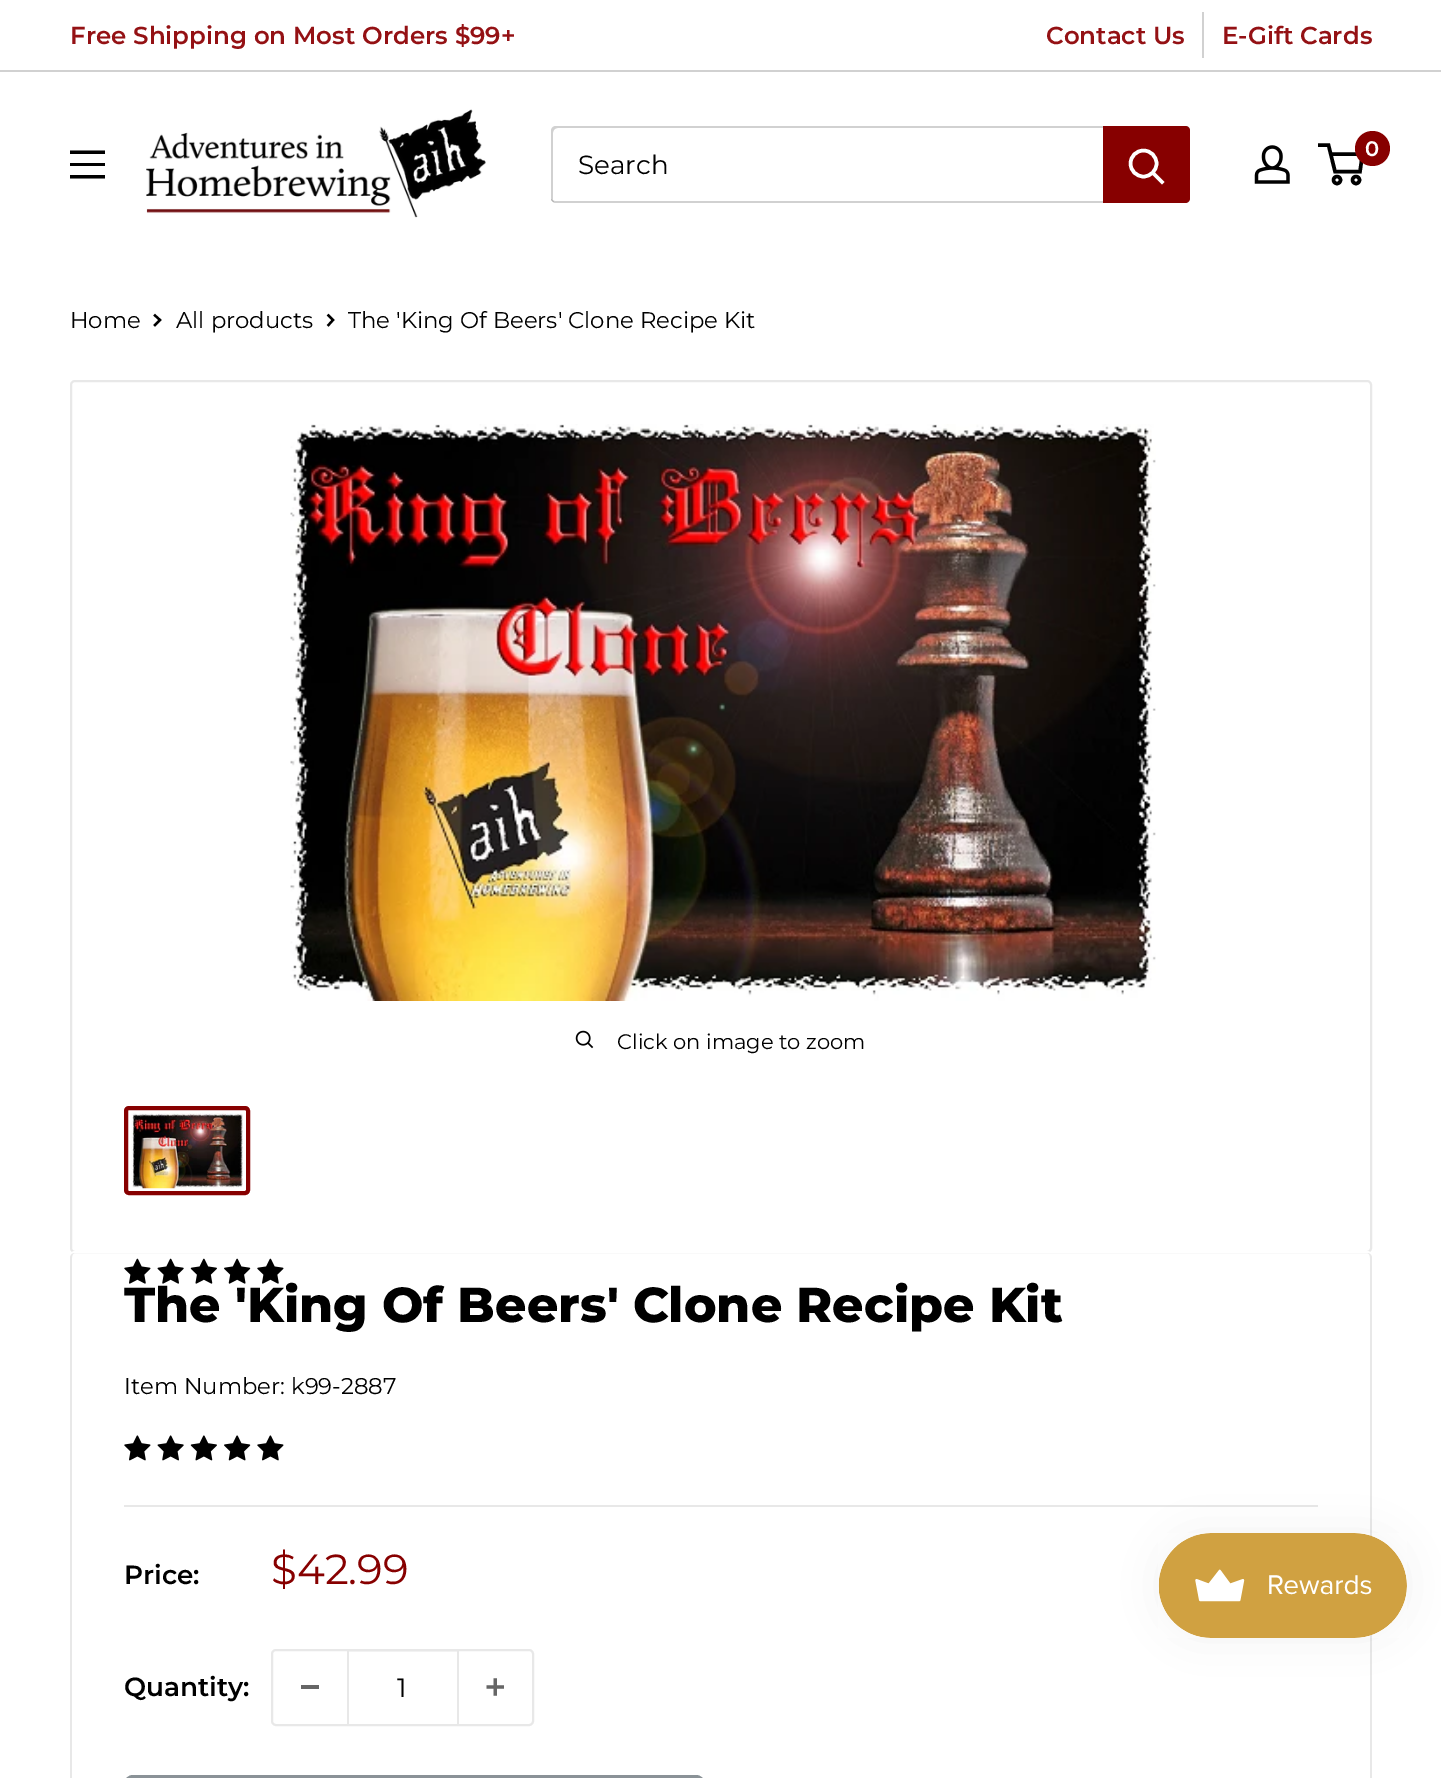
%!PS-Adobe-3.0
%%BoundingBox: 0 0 1441 1778
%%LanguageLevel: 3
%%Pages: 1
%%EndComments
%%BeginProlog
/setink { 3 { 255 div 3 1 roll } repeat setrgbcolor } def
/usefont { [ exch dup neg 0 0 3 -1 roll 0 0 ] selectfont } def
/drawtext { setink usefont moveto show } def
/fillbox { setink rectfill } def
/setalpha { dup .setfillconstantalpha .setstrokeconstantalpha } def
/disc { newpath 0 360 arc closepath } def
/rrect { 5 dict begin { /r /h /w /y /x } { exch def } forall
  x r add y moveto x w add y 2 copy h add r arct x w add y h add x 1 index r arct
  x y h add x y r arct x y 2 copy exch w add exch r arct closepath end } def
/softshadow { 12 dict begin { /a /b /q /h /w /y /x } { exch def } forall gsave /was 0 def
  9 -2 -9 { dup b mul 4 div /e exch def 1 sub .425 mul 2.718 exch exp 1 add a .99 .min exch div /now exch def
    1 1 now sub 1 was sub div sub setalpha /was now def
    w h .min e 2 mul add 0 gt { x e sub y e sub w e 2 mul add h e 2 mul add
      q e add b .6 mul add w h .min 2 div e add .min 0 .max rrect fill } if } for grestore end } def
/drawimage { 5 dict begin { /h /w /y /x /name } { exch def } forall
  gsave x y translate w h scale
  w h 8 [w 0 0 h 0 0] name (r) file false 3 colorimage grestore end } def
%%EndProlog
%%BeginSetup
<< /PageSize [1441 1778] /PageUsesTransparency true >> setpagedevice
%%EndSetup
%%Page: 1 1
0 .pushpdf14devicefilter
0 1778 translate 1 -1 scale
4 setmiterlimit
0 0 1441 1778 255 255 255 fillbox
0 70 1441 2 209 209 209 fillbox
(Free Shipping on Most Orders $99+) 70 44 /Montserrat-SemiBold 24.5 148 17 20 drawtext
(Contact Us) 1046 44 /Montserrat-SemiBold 24.5 148 17 20 drawtext
1202 12 2 46 209 209 209 fillbox
(E-Gift Cards) 1222 44 /Montserrat-SemiBold 24.5 148 17 20 drawtext
0 0 0 setink
70 175 moveto 105 175 lineto 105 178.5 lineto 70 178.5 lineto closepath 70 150.5 moveto 105 150.5 lineto 105 154 lineto 70 154 lineto closepath 70 163 moveto 105 163 lineto 105 166 lineto 70 166 lineto closepath eofill
(assets/img1.rgb) 146 109 340 109 drawimage
209 209 209 setink
551 199 moveto 552 202 554 203 556 203 curveto 1185 203 lineto 1188 203 1190 201 1190 198 curveto 1190 131 lineto 1190 129 1189 127 1187 126 curveto 1188 130 lineto 1188 196 lineto 1188 199 1186 201 1183 201 curveto 555 201 lineto 553 201 552 200 551 199 curveto closepath fill
0.3 setalpha
102 102 102 setink
558 128 moveto 1186 128 lineto 1190 129 lineto 1189 127 1187 126 1185 126 curveto 556 126 lineto 553 126 551 128 551 131 curveto 551 198 lineto 551 200 552 202 554 202 curveto 553 200 lineto 553 133 lineto 553 130 555 128 558 128 curveto closepath fill
1 setalpha
(Search) 578 174 /Montserrat-Regular 26.25 0 0 0 drawtext
135 0 0 setink
1103 126 moveto 1185 126 lineto 1188 126 1190 128 1190 131 curveto 1190 198 lineto 1190 201 1188 203 1185 203 curveto 1103 203 lineto closepath fill
255 255 255 setink
3.5 setlinewidth
2 setlinecap
1162 182 moveto 1153 173 lineto stroke
0 setlinecap
1143.5 163.5 13 disc stroke
(assets/img2.rgb) 1254 145 36 39 drawimage
0 0 0 setink
1337 180 3.5 disc stroke
1356 180 3.5 disc stroke
1330.5 154 moveto 1362.5 154 lineto 1360 171.5 lineto 1335 171.5 lineto 1328.5 145 lineto 1318 145 lineto stroke
135 0 0 setink
1372.5 148.5 17.5 disc fill
(0) 1365 156 /Montserrat-SemiBold 21 255 255 255 drawtext
(Home) 70 328 /Montserrat-Regular 22.75 0 0 0 drawtext
2.3 setlinewidth
2 setlinecap
155 315.5 moveto 160 320 lineto 155 325 lineto stroke
(All products) 176 328 /Montserrat-Regular 22.75 0 0 0 drawtext
328.5 315.5 moveto 333 320 lineto 328.5 325 lineto stroke
(The 'King Of Beers' Clone Recipe Kit) 348 328 /Montserrat-Regular 22.75 0 0 0 drawtext
232 232 232 setink
2 setlinewidth
0 setlinecap
71 381 1300 871 4 rrect stroke
(assets/img3.rgb) 290 424 866 577 drawimage
(assets/img4.rgb) 575 1030 19 19 drawimage
(Click on image to zoom) 617 1049 /Montserrat-Regular 21 0 0 0 drawtext
135 0 0 setink
4 setlinewidth
126 1108 122 85 3 rrect stroke
(assets/img5.rgb) 131 1113 112 76 drawimage
255 255 255 setink
75 1251 moveto 71 1251 70 1255 70 1258 curveto 70 1255 72 1253 75 1253 curveto 1367 1253 lineto 1370 1253 1372 1255 1372 1258 curveto 1372 1255 1371 1251 1367 1251 curveto closepath fill
232 232 232 setink
75 1253 moveto 1367 1253 lineto 1370 1253 1372 1255 1372 1258 curveto 1372 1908 lineto 1372 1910 1370 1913 1367 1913 curveto 75 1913 lineto 72 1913 70 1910 70 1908 curveto 70 1258 lineto 70 1255 72 1253 75 1253 curveto closepath 75 1253 moveto 1367 1253 lineto 1369 1253 1370 1255 1370 1258 curveto 1370 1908 lineto 1370 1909 1369 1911 1367 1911 curveto 75 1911 lineto 73 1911 72 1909 72 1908 curveto 72 1258 lineto 72 1255 73 1253 75 1253 curveto closepath eofill
(assets/img6.rgb) 124 1258 27 26 drawimage
(assets/img7.rgb) 157 1258 27 26 drawimage
(assets/img8.rgb) 190 1258 27 26 drawimage
(assets/img9.rgb) 224 1258 27 26 drawimage
(assets/img6.rgb) 257 1258 27 26 drawimage
(The 'King Of Beers' Clone Recipe Kit) 124 1322 /Montserrat-ExtraBold 49 0 0 0 drawtext
(Item Number: k99-2887) 124 1394 /Montserrat-Regular 22.75 0 0 0 drawtext
(assets/img10.rgb) 124 1435 27 26 drawimage
(assets/img11.rgb) 157 1435 27 26 drawimage
(assets/img12.rgb) 190 1435 27 26 drawimage
(assets/img13.rgb) 224 1435 27 26 drawimage
(assets/img10.rgb) 257 1435 27 26 drawimage
124 1505 1194 2 232 232 232 fillbox
(Price:) 124 1584 /Montserrat-SemiBold 26.25 0 0 0 drawtext
($42.99) 271 1584 /Montserrat-Regular 42 135 0 0 drawtext
(Quantity:) 124 1696 /Montserrat-SemiBold 26.25 0 0 0 drawtext
232 232 232 setink
2 setlinewidth
272 1650 261 75 4 rrect stroke
301 1685 18 4 102 102 102 fillbox
0.4 setalpha
348 1651 109 1 232 232 232 fillbox
1 setalpha
457 1650 2 74 232 232 232 fillbox
347 1650 2 74 232 232 232 fillbox
(1) 397 1697 /Montserrat-Regular 26.25 0 0 0 drawtext
(assets/img14.rgb) 486 1678 18 18 drawimage
138 146 151 setink
125 1776 579 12 8 rrect gsave fill grestore
stroke
0 0 0 setink
1159 1533 248 105 52.5 22 0.05 softshadow
(assets/img15.rgb) 1158 1533 249 105 drawimage
.poppdf14devicefilter showpage
%%EOF
